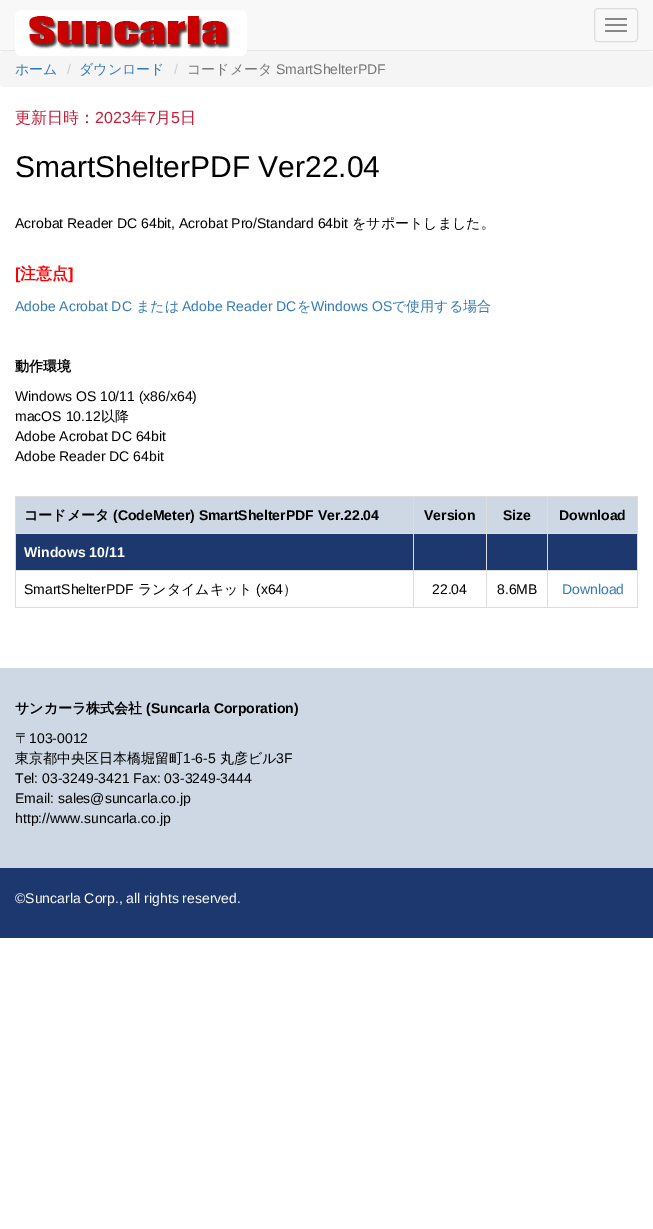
%!PS-Adobe-3.0
%%BoundingBox: 0 0 653 1229
%%LanguageLevel: 3
%%Pages: 1
%%EndComments
%%BeginProlog
/setink { 3 { 255 div 3 1 roll } repeat setrgbcolor } def
/usefont { [ exch dup neg 0 0 3 -1 roll 0 0 ] selectfont } def
/drawtext { setink usefont moveto show } def
/fillbox { setink rectfill } def
/rrect { 5 dict begin { /r /h /w /y /x } { exch def } forall
  x r add y moveto x w add y 2 copy h add r arct x w add y h add x 1 index r arct
  x y h add x y r arct x y 2 copy exch w add exch r arct closepath end } def
/drawimage { 5 dict begin { /h /w /y /x /name } { exch def } forall
  gsave x y translate w h scale
  w h 8 [w 0 0 h 0 0] name (r) file false 3 colorimage grestore end } def
%%EndProlog
%%BeginSetup
<< /PageSize [653 1229] >> setpagedevice
%%EndSetup
%%Page: 1 1
0 1229 translate 1 -1 scale
4 setmiterlimit
0 0 653 1229 255 255 255 fillbox
0 0 653 50 248 248 248 fillbox
0 50 653 1 231 231 231 fillbox
245 245 245 setink
0 51 653 36 4 rrect fill
(assets/img1.rgb) 15 10 232 46 drawimage
221 221 221 setink
594.5 8.5 43 33 3.5 rrect stroke
136 136 136 setink
605 18 22 2 1 rrect fill
605 24 22 2 1 rrect fill
605 30 22 2 1 rrect fill
(ホーム) 15 74 /WenQuanYiZenHei-Medium 14 51 122 183 drawtext
(/) 67 74 /LiberationSans-Regular 14 204 204 204 drawtext
(ダウンロード) 79 74 /WenQuanYiZenHei-Medium 14 51 122 183 drawtext
(/) 174 74 /LiberationSans-Regular 14 204 204 204 drawtext
(コードメータ) 187 74 /WenQuanYiZenHei-Medium 14 119 119 119 drawtext
(SmartShelterPDF) 276 74 /LiberationSans-Regular 14 119 119 119 drawtext
(更新日時：) 15 123 /WenQuanYiZenHei-Medium 16 199 31 59 drawtext
(2023) 95 123 /LiberationSans-Regular 16 199 31 59 drawtext
(年) 131 123 /WenQuanYiZenHei-Medium 16 199 31 59 drawtext
(7) 147 123 /LiberationSans-Regular 16 199 31 59 drawtext
(月) 155 123 /WenQuanYiZenHei-Medium 16 199 31 59 drawtext
(5) 171 123 /LiberationSans-Regular 16 199 31 59 drawtext
(日) 180 123 /WenQuanYiZenHei-Medium 16 199 31 59 drawtext
(SmartShelterPDF Ver22.04) 15 177 /LiberationSans-Regular 30 0 0 0 drawtext
(Acrobat Reader DC 64bit, Acrobat Pro/Standard 64bit) 15 228 /LiberationSans-Regular 14 0 0 0 drawtext
(をサポートしました。) 352 228 /WenQuanYiZenHei-Medium 14 0 0 0 drawtext
([) 15 279 /LiberationSans-Bold 16 255 0 4 drawtext
(注意点) 20 279 /WenQuanYiZenHei-Bold 16 255 0 4 drawtext
(]) 68 279 /LiberationSans-Bold 16 255 0 4 drawtext
(Adobe Acrobat DC) 15 311 /LiberationSans-Regular 14 51 122 183 drawtext
(または) 136 311 /WenQuanYiZenHei-Medium 14 51 122 183 drawtext
(Adobe Reader DC) 182 311 /LiberationSans-Regular 14 51 122 183 drawtext
(を) 297 311 /WenQuanYiZenHei-Medium 14 51 122 183 drawtext
(Windows OS) 311 311 /LiberationSans-Regular 14 51 122 183 drawtext
(で使用する場合) 392 311 /WenQuanYiZenHei-Medium 14 51 122 183 drawtext
(動作環境) 15 371 /WenQuanYiZenHei-Bold 14 0 0 0 drawtext
(Windows OS 10/11 \(x86/x64\)) 15 401 /LiberationSans-Regular 14 0 0 0 drawtext
(macOS 10.12) 15 421 /LiberationSans-Regular 14 0 0 0 drawtext
(以降) 101 421 /WenQuanYiZenHei-Medium 14 0 0 0 drawtext
(Adobe Acrobat DC 64bit) 15 441 /LiberationSans-Regular 14 0 0 0 drawtext
(Adobe Reader DC 64bit) 15 461 /LiberationSans-Regular 14 0 0 0 drawtext
15 496 623 1 221 221 221 fillbox
637 496 1 112 221 221 221 fillbox
15 607 623 1 221 221 221 fillbox
15 496 1 112 221 221 221 fillbox
16 497 621 36 205 216 228 fillbox
(コードメータ) 24 520 /WenQuanYiZenHei-Bold 14 0 0 0 drawtext
(\(CodeMeter\) SmartShelterPDF Ver.22.04) 113 520 /LiberationSans-Bold 14 0 0 0 drawtext
547 533 91 1 221 221 221 fillbox
16 534 621 36 28 56 111 fillbox
547 570 91 1 221 221 221 fillbox
547 570 1 38 221 221 221 fillbox
486 570 62 1 221 221 221 fillbox
547 533 1 38 221 221 221 fillbox
486 533 62 1 221 221 221 fillbox
486 570 1 38 221 221 221 fillbox
413 570 74 1 221 221 221 fillbox
486 533 1 38 221 221 221 fillbox
413 533 74 1 221 221 221 fillbox
413 570 1 38 221 221 221 fillbox
15 570 399 1 221 221 221 fillbox
413 533 1 38 221 221 221 fillbox
15 533 399 1 221 221 221 fillbox
413 496 1 38 221 221 221 fillbox
(Version) 424 520 /LiberationSans-Bold 14 0 0 0 drawtext
486 496 1 38 221 221 221 fillbox
(Size) 503 520 /LiberationSans-Bold 14 0 0 0 drawtext
547 496 1 38 221 221 221 fillbox
(Download) 559 520 /LiberationSans-Bold 14 0 0 0 drawtext
(Windows 10/11) 24 557 /LiberationSans-Bold 14 255 255 255 drawtext
(SmartShelterPDF) 24 594 /LiberationSans-Regular 14 0 0 0 drawtext
(ランタイムキット) 138 594 /WenQuanYiZenHei-Medium 14 0 0 0 drawtext
(\(x64) 256 594 /LiberationSans-Regular 14 0 0 0 drawtext
(）) 283 594 /WenQuanYiZenHei-Medium 14 0 0 0 drawtext
(22.04) 432 594 /LiberationSans-Regular 14 0 0 0 drawtext
(8.6MB) 497 594 /LiberationSans-Regular 14 0 0 0 drawtext
(Download) 562 594 /LiberationSans-Regular 14 51 122 183 drawtext
0 668 653 200 205 216 228 fillbox
(サンカーラ株式会社) 15 713 /WenQuanYiZenHei-Bold 14 0 0 0 drawtext
(\(Suncarla Corporation\)) 146 713 /LiberationSans-Bold 14 0 0 0 drawtext
(〒) 15 743 /WenQuanYiZenHei-Medium 14 0 0 0 drawtext
(103-0012) 29 743 /LiberationSans-Regular 14 0 0 0 drawtext
(東京都中央区日本橋堀留町) 15 763 /WenQuanYiZenHei-Medium 14 0 0 0 drawtext
(1-6-5) 183 763 /LiberationSans-Regular 14 0 0 0 drawtext
(丸彦ビル) 220 763 /WenQuanYiZenHei-Medium 14 0 0 0 drawtext
(3F) 276 763 /LiberationSans-Regular 14 0 0 0 drawtext
(Tel: 03-3249-3421 Fax: 03-3249-3444) 15 783 /LiberationSans-Regular 14 0 0 0 drawtext
(Email: sales@suncarla.co.jp) 15 803 /LiberationSans-Regular 14 0 0 0 drawtext
(http://www.suncarla.co.jp) 15 823 /LiberationSans-Regular 14 0 0 0 drawtext
0 868 653 70 28 56 111 fillbox
(©Suncarla Corp., all rights reserved.) 15 903 /LiberationSans-Regular 14 255 255 255 drawtext
showpage
%%EOF
